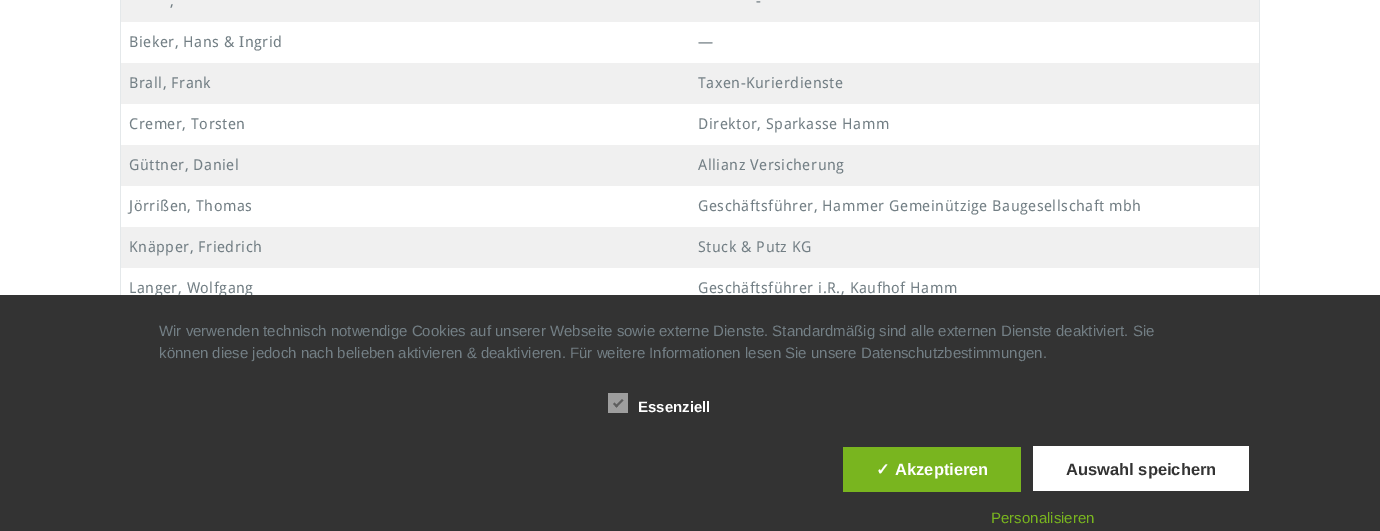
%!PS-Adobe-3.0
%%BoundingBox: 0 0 1380 531
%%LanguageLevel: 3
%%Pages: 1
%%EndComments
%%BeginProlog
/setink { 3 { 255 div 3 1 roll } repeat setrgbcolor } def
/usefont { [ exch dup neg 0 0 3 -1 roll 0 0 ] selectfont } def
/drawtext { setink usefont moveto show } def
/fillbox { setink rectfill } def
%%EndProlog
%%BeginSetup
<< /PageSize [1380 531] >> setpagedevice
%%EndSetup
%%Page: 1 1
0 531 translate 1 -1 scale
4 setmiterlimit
0 0 1380 531 255 255 255 fillbox
1259 0 1 295 228 232 234 fillbox
120 0 1 295 228 232 234 fillbox
121 0 1138 22 240 240 240 fillbox
/DroidSans-Regular 15 usefont
115 127 133 setink
756 6 moveto 0.5 0 (-) ashow
170 6 moveto 0.5 0 (,) ashow
129 47 moveto 0.5 0 (Bieker, Hans & Ingrid) ashow
698 47 moveto 0.5 0 (—) ashow
121 63 1138 41 240 240 240 fillbox
115 127 133 setink
129 88 moveto 0.5 0 (Brall, Frank) ashow
698 88 moveto 0.5 0 (Taxen-Kurierdienste) ashow
129 129 moveto 0.5 0 (Cremer, Torsten) ashow
698 129 moveto 0.5 0 (Direktor, Sparkasse Hamm) ashow
121 145 1138 41 240 240 240 fillbox
115 127 133 setink
129 170 moveto 0.5 0 (Güttner, Daniel) ashow
698 170 moveto 0.5 0 (Allianz Versicherung) ashow
129 211 moveto 0.5 0 (Jörrißen, Thomas) ashow
698 211 moveto 0.5 0 (Geschäftsführer, Hammer Gemeinützige Baugesellschaft mbh) ashow
121 227 1138 41 240 240 240 fillbox
115 127 133 setink
129 252 moveto 0.5 0 (Knäpper, Friedrich) ashow
698 252 moveto 0.5 0 (Stuck & Putz KG) ashow
129 293 moveto 0.5 0 (Langer, Wolfgang) ashow
698 293 moveto 0.5 0 (Geschäftsführer i.R., Kaufhof Hamm) ashow
0 295 1380 236 51 51 51 fillbox
(Wir verwenden technisch notwendige Cookies auf unserer Webseite sowie externe Dienste. Standardmäßig sind alle externen Dienste deaktiviert. Sie) 159 336 /LiberationSans-Regular 15 115 127 133 drawtext
(können diese jedoch nach belieben aktivieren & deaktivieren. Für weitere Informationen lesen Sie unsere Datenschutzbestimmungen.) 159 358 /LiberationSans-Regular 15 115 127 133 drawtext
608 393 20 20 158 158 158 fillbox
94 94 94 setink
622 399 moveto 623.5 400.5 lineto 616.5 407.5 lineto 615 406 lineto closepath fill
614.5 402.5 moveto 618 406 lineto 616.5 407.5 lineto 613 404 lineto closepath fill
(Essenziell) 638 412 /LiberationSans-Bold 15 255 255 255 drawtext
843 447 178 45 121 181 31 fillbox
(✓) 876 475 /DejaVuSans-Bold 16.5 255 255 255 drawtext
(Akzeptieren) 895 475 /LiberationSans-Bold 16.5 255 255 255 drawtext
1033 446 216 45 255 255 255 fillbox
(Auswahl speichern) 1066 475 /LiberationSans-Bold 16.5 51 51 51 drawtext
(Personalisieren) 991 523 /LiberationSans-Regular 15 121 181 31 drawtext
showpage
%%EOF
